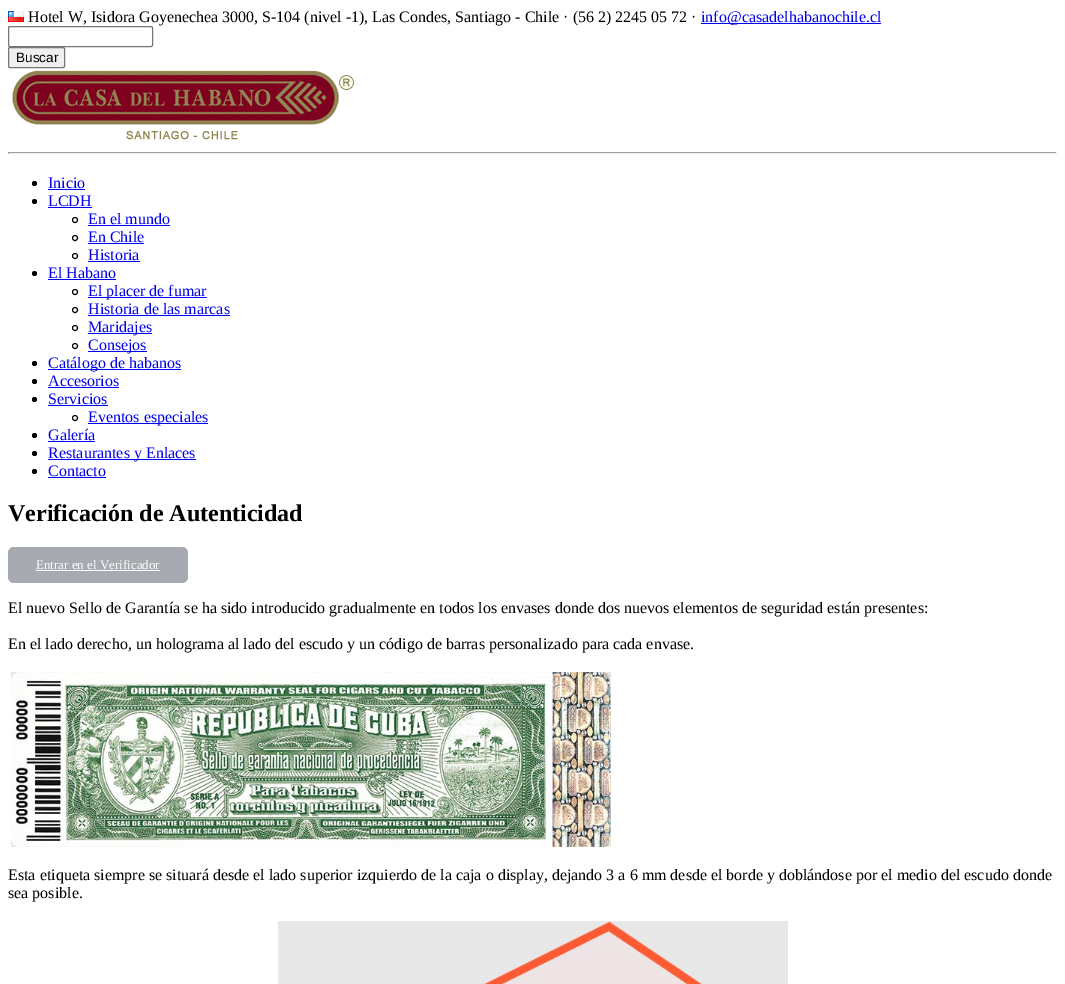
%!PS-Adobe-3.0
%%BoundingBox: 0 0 1065 984
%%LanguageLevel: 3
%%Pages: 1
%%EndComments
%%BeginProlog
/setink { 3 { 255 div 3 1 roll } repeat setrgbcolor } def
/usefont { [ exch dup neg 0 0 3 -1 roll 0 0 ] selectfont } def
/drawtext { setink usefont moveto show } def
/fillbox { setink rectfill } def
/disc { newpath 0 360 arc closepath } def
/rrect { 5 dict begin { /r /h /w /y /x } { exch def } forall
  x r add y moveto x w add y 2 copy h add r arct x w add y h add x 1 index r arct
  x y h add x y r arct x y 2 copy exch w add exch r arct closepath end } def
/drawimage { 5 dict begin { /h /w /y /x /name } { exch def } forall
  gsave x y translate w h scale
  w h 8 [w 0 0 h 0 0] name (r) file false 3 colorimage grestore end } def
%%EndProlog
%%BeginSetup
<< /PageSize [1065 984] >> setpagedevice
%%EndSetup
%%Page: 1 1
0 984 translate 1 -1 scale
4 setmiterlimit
0 0 1065 984 255 255 255 fillbox
(assets/img1.rgb) 8 11 16 11 drawimage
(Hotel W, Isidora Goyenechea 3000, S-104 \(nivel -1\), Las Condes, Santiago - Chile · \(56 2\) 2245 05 72 ·) 28 22 /LiberationSerif-Regular 16 0 0 0 drawtext
701 23 180 1 0 0 238 fillbox
(info@casadelhabanochile.cl) 701 22 /LiberationSerif-Regular 16 0 0 238 drawtext
118 118 118 setink
8.5 26.5 144 20 1.5 rrect stroke
239 239 239 setink
8.5 47.5 56 20 1.5 rrect gsave fill grestore
118 118 118 setink
stroke
(Buscar) 16 62 /LiberationSans-Regular 13.5 0 0 0 drawtext
(assets/img2.rgb) 12 70 342 70 drawimage
8 152 1049 1 159 159 159 fillbox
1056 152 1 2 238 238 238 fillbox
8 153 1049 1 238 238 238 fillbox
8 152 1 2 159 159 159 fillbox
0 0 0 setink
34.5 183.5 2.5 disc fill
(Inicio) 48 188 /LiberationSerif-Regular 16 0 0 238 drawtext
48 189 37 1 0 0 238 fillbox
0 0 0 setink
34.5 201.5 2.5 disc fill
(LCDH) 48 206 /LiberationSerif-Regular 16 0 0 238 drawtext
48 207 44 1 0 0 238 fillbox
0 0 0 setink
75 220 2.5 disc stroke
(En el mundo) 88 224 /LiberationSerif-Regular 16 0 0 238 drawtext
88 225 82 1 0 0 238 fillbox
0 0 0 setink
75 238 2.5 disc stroke
(En Chile) 88 242 /LiberationSerif-Regular 16 0 0 238 drawtext
88 243 56 1 0 0 238 fillbox
0 0 0 setink
75 256 2.5 disc stroke
(Historia) 88 260 /LiberationSerif-Regular 16 0 0 238 drawtext
88 261 52 1 0 0 238 fillbox
0 0 0 setink
34.5 273.5 2.5 disc fill
(El Habano) 48 278 /LiberationSerif-Regular 16 0 0 238 drawtext
48 279 68 1 0 0 238 fillbox
0 0 0 setink
75 292 2.5 disc stroke
88 297 119 1 0 0 238 fillbox
(El placer de fumar) 88 296 /LiberationSerif-Regular 16 0 0 238 drawtext
0 0 0 setink
75 310 2.5 disc stroke
(Historia de las marcas) 88 314 /LiberationSerif-Regular 16 0 0 238 drawtext
88 315 142 1 0 0 238 fillbox
0 0 0 setink
75 328 2.5 disc stroke
88 333 64 1 0 0 238 fillbox
(Maridajes) 88 332 /LiberationSerif-Regular 16 0 0 238 drawtext
0 0 0 setink
75 346 2.5 disc stroke
88 351 59 1 0 0 238 fillbox
(Consejos) 88 350 /LiberationSerif-Regular 16 0 0 238 drawtext
0 0 0 setink
34.5 363.5 2.5 disc fill
48 369 133 1 0 0 238 fillbox
(Catálogo de habanos) 48 368 /LiberationSerif-Regular 16 0 0 238 drawtext
0 0 0 setink
34.5 381.5 2.5 disc fill
(Accesorios) 48 386 /LiberationSerif-Regular 16 0 0 238 drawtext
48 387 71 1 0 0 238 fillbox
0 0 0 setink
34.5 399.5 2.5 disc fill
(Servicios) 48 404 /LiberationSerif-Regular 16 0 0 238 drawtext
48 405 60 1 0 0 238 fillbox
0 0 0 setink
75 418 2.5 disc stroke
88 423 120 1 0 0 238 fillbox
(Eventos especiales) 88 422 /LiberationSerif-Regular 16 0 0 238 drawtext
0 0 0 setink
34.5 435.5 2.5 disc fill
(Galería) 48 440 /LiberationSerif-Regular 16 0 0 238 drawtext
48 441 47 1 0 0 238 fillbox
0 0 0 setink
34.5 453.5 2.5 disc fill
48 459 148 1 0 0 238 fillbox
(Restaurantes y Enlaces) 48 458 /LiberationSerif-Regular 16 0 0 238 drawtext
0 0 0 setink
34.5 471.5 2.5 disc fill
(Contacto) 48 476 /LiberationSerif-Regular 16 0 0 238 drawtext
48 477 58 1 0 0 238 fillbox
(Verificación de Autenticidad) 8 521 /LiberationSerif-Bold 24 0 0 0 drawtext
168 170 177 setink
8 547 180 36 6 rrect fill
(Entrar en el Verificador) 36 569 /LiberationSerif-Regular 13 255 255 255 drawtext
36 570 124 1 255 255 255 fillbox
(El nuevo Sello de Garantía se ha sido introducido gradualmente en todos los envases donde dos nuevos elementos de seguridad están presentes:) 8 613 /LiberationSerif-Regular 16 0 0 0 drawtext
(En el lado derecho, un holograma al lado del escudo y un código de barras personalizado para cada envase.) 8 649 /LiberationSerif-Regular 16 0 0 0 drawtext
(assets/img3.rgb) 11 672 600 175 drawimage
(Esta etiqueta siempre se situará desde el lado superior izquierdo de la caja o display, dejando 3 a 6 mm desde el borde y doblándose por el medio del escudo donde) 8 880 /LiberationSerif-Regular 16 0 0 0 drawtext
(sea posible.) 8 898 /LiberationSerif-Regular 16 0 0 0 drawtext
(assets/img4.rgb) 278 921 510 63 drawimage
showpage
%%EOF
